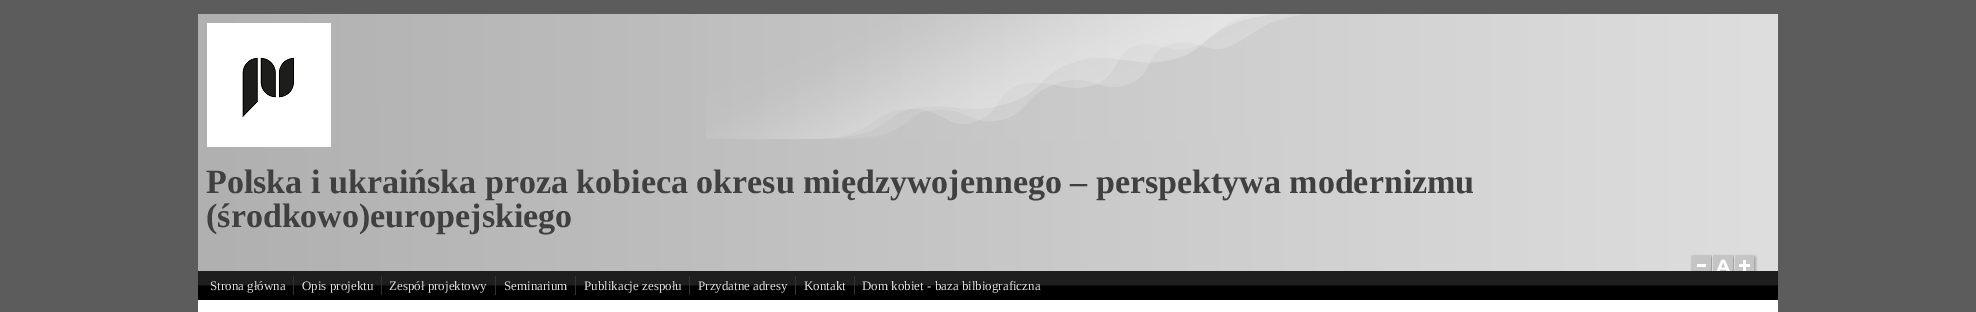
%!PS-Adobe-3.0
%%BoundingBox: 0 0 1976 312
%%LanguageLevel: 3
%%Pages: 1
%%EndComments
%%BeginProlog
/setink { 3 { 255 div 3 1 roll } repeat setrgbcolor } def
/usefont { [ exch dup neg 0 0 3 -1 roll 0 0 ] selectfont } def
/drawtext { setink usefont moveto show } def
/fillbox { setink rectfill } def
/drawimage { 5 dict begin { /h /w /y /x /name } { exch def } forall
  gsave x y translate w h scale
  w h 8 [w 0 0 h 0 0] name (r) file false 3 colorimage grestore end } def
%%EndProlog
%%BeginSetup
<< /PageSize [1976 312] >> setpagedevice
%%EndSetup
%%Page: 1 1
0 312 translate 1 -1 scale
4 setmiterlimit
0 0 1976 312 92 92 92 fillbox
198 300 1580 12 255 255 255 fillbox
gsave 198 14 moveto 1778 14 lineto 1778 271 lineto 198 271 lineto closepath clip newpath
<< /ShadingType 2 /ColorSpace /DeviceRGB /Coords [198 143 1778 142] /Extend [true true] /Function << /FunctionType 2 /Domain [0 1] /C0 [0.69 0.69 0.69] /C1 [0.871 0.871 0.871] /N 1 >> >> shfill grestore
(assets/img1.rgb) 706 14 596 125 drawimage
(assets/img2.rgb) 207 23 124 124 drawimage
(Polska i ukraińska proza kobieca okresu międzywojennego – perspektywa modernizmu) 206 193 /LiberationSerif-Bold 34 64 64 64 drawtext
(\(środkowo\)europejskiego) 206 227 /LiberationSerif-Bold 34 64 64 64 drawtext
(assets/img3.rgb) 1690 254 22 17 drawimage
(assets/img4.rgb) 1713 254 21 17 drawimage
(assets/img5.rgb) 1735 254 23 17 drawimage
(assets/img6.rgb) 198 271 1580 29 drawimage
(Strona główna) 210 290 /LiberationSerif-Regular 13 221 221 221 drawtext
293 276 1 19 51 51 51 fillbox
(Opis projektu) 302 290 /LiberationSerif-Regular 13 221 221 221 drawtext
381 276 1 19 51 51 51 fillbox
(Zespół projektowy) 389 290 /LiberationSerif-Regular 13 221 221 221 drawtext
495 276 1 19 51 51 51 fillbox
(Seminarium) 504 290 /LiberationSerif-Regular 13 221 221 221 drawtext
575 276 1 19 51 51 51 fillbox
(Publikacje zespołu) 584 290 /LiberationSerif-Regular 13 221 221 221 drawtext
689 276 1 19 51 51 51 fillbox
(Przydatne adresy) 698 290 /LiberationSerif-Regular 13 221 221 221 drawtext
795 276 1 19 51 51 51 fillbox
(Kontakt) 804 290 /LiberationSerif-Regular 13 221 221 221 drawtext
854 276 1 19 51 51 51 fillbox
(Dom kobiet - baza bilbiograficzna) 862 290 /LiberationSerif-Regular 13 221 221 221 drawtext
showpage
%%EOF
